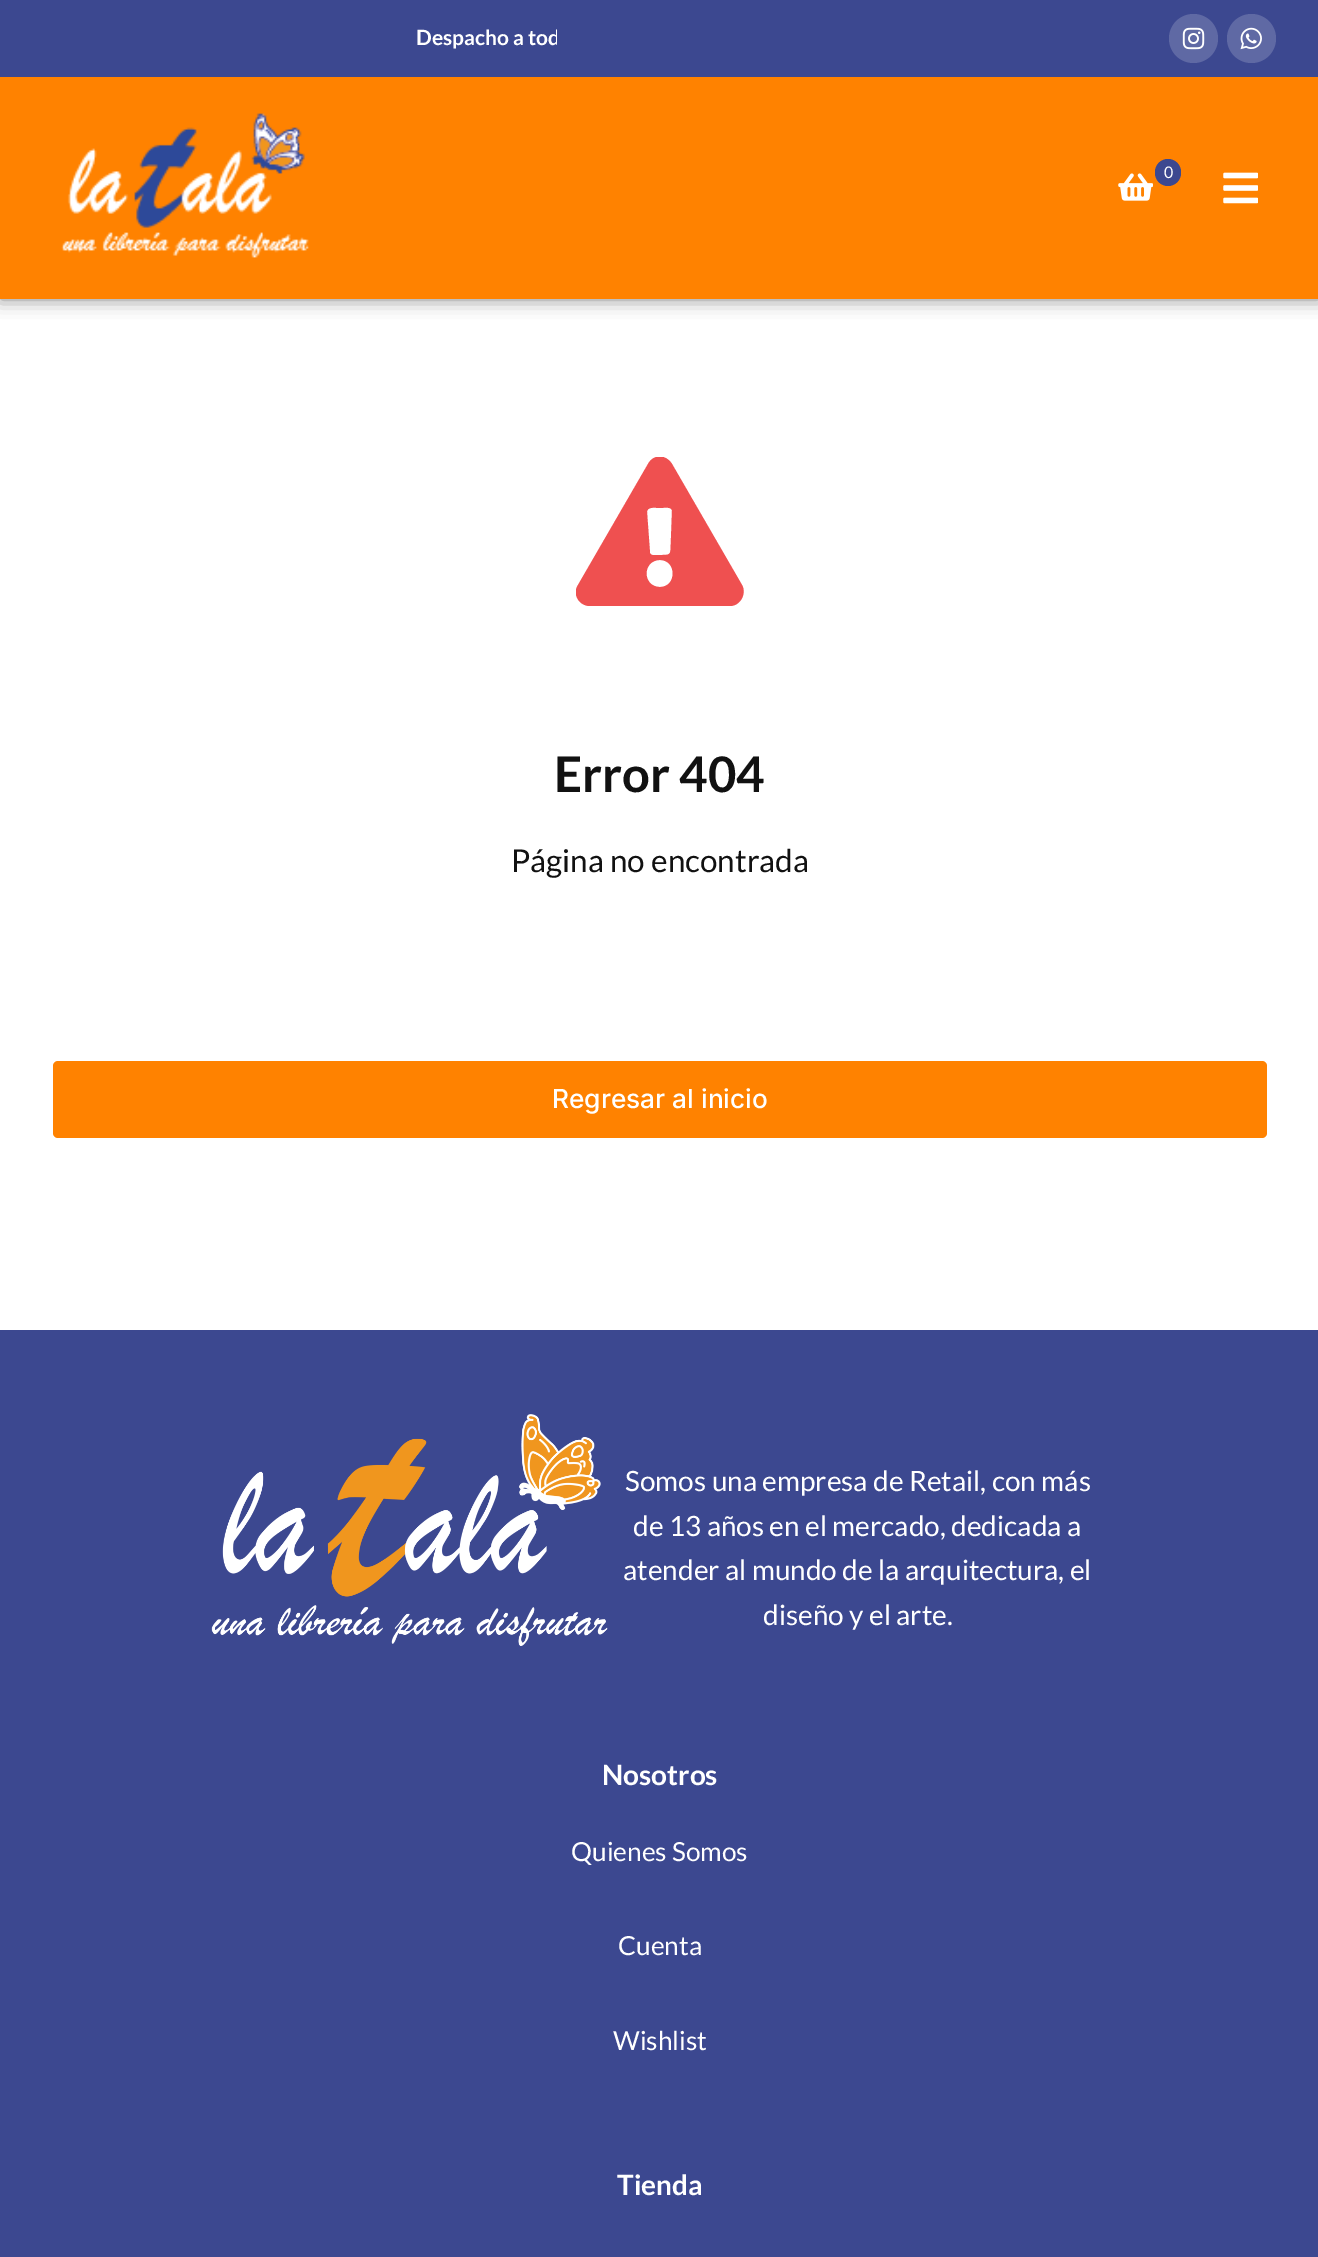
%!PS-Adobe-3.0
%%BoundingBox: 0 0 1318 2257
%%LanguageLevel: 3
%%Pages: 1
%%EndComments
%%BeginProlog
/setink { 3 { 255 div 3 1 roll } repeat setrgbcolor } def
/usefont { [ exch dup neg 0 0 3 -1 roll 0 0 ] selectfont } def
/drawtext { setink usefont moveto show } def
/fillbox { setink rectfill } def
/setalpha { dup .setfillconstantalpha .setstrokeconstantalpha } def
/disc { newpath 0 360 arc closepath } def
/rrect { 5 dict begin { /r /h /w /y /x } { exch def } forall
  x r add y moveto x w add y 2 copy h add r arct x w add y h add x 1 index r arct
  x y h add x y r arct x y 2 copy exch w add exch r arct closepath end } def
/softshadow { 12 dict begin { /a /b /q /h /w /y /x } { exch def } forall gsave /was 0 def
  9 -2 -9 { dup b mul 4 div /e exch def 1 sub .425 mul 2.718 exch exp 1 add a .99 .min exch div /now exch def
    1 1 now sub 1 was sub div sub setalpha /was now def
    w h .min e 2 mul add 0 gt { x e sub y e sub w e 2 mul add h e 2 mul add
      q e add b .6 mul add w h .min 2 div e add .min 0 .max rrect fill } if } for grestore end } def
/drawimage { 5 dict begin { /h /w /y /x /name } { exch def } forall
  gsave x y translate w h scale
  w h 8 [w 0 0 h 0 0] name (r) file false 3 colorimage grestore end } def
%%EndProlog
%%BeginSetup
<< /PageSize [1318 2257] /PageUsesTransparency true >> setpagedevice
%%EndSetup
%%Page: 1 1
0 .pushpdf14devicefilter
0 2257 translate 1 -1 scale
4 setmiterlimit
0 0 1318 2257 255 255 255 fillbox
0 0 0 setink
0 75 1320 224 0 9 0.5 softshadow
0 0 1318 77 60 72 144 fillbox
gsave
243 26 314 25 rectclip
(Despacho a tod) 416 45 /Lato-Bold 21 255 255 255 drawtext
grestore
95 105 164 setink
1193.5 38.5 24.5 disc fill
(assets/img1.rgb) 1182 27 23 23 drawimage
1251.5 38.5 24.5 disc fill
(assets/img2.rgb) 1240 27 22 23 drawimage
0 77 1318 222 255 130 0 fillbox
(assets/img3.rgb) 61 113 248 145 drawimage
(assets/img4.rgb) 1118 173 35 28 drawimage
60 72 144 setink
1155 159 26 27 13 rrect fill
(0) 1164 178 /Lato-Regular 16 255 255 255 drawtext
(assets/img5.rgb) 1223 172 35 32 drawimage
gsave
576 457 168 149 rectclip
239 80 80 setink
742 585 moveto 747 594 740 606 730 606 curveto 590 606 lineto 579 606 572 594 578 585 curveto 648 464 lineto 653 454 666 454 672 464 curveto closepath 660 560 moveto 642 560 642 587 660 587 curveto 677 587 677 560 660 560 curveto closepath 647 512 moveto 650 553 lineto 651 556 655 555 657 555 curveto 673 555 670 556 671 538 curveto 672 511 lineto 672 506 663 508 660 508 curveto 657 508 647 506 647 512 curveto closepath fill
grestore
(Error 404) 554 792 /Lato-Bold 49 17 17 17 drawtext
(Página no encontrada) 511 872 /Lato-Regular 31.5 17 17 17 drawtext
255 130 0 setink
53 1061 1214 77 5 rrect fill
(Regresar al inicio) 552 1108 /Inter-Medium 26.25 255 255 255 drawtext
0 1330 1318 927 60 72 144 fillbox
(assets/img6.rgb) 211 1414 397 232 drawimage
(Somos una empresa de Retail, con más) 625 1491 /Lato-Regular 28 255 255 255 drawtext
(de 13 años en el mercado, dedicada a) 633 1536 /Lato-Regular 28 255 255 255 drawtext
(atender al mundo de la arquitectura, el) 623 1580 /Lato-Regular 28 255 255 255 drawtext
(diseño y el arte.) 763 1625 /Lato-Regular 28 255 255 255 drawtext
(Nosotros) 602 1785 /Lato-Bold 28 255 255 255 drawtext
(Quienes Somos) 571 1861 /Lato-Regular 26.25 255 255 255 drawtext
(Cuenta) 618 1955 /Lato-Regular 26.25 255 255 255 drawtext
(Wishlist) 613 2050 /Lato-Regular 26.25 255 255 255 drawtext
(Tienda) 617 2195 /Lato-Bold 28 255 255 255 drawtext
.poppdf14devicefilter showpage
%%EOF
